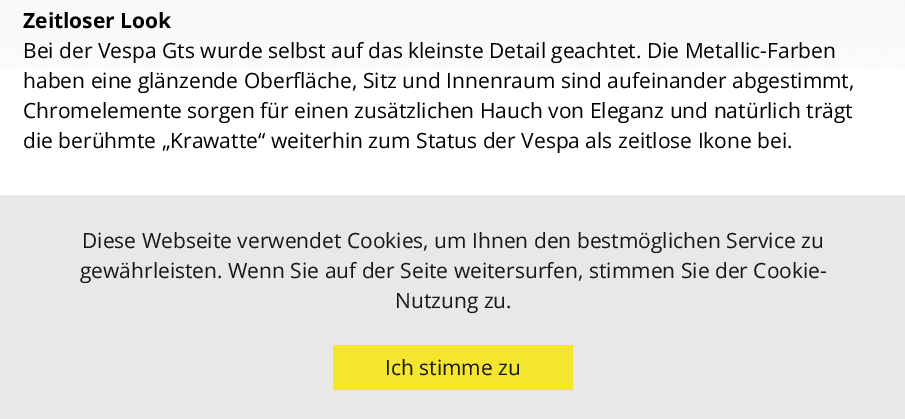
%!PS-Adobe-3.0
%%BoundingBox: 0 0 905 419
%%LanguageLevel: 3
%%Pages: 1
%%EndComments
%%BeginProlog
/setink { 3 { 255 div 3 1 roll } repeat setrgbcolor } def
/usefont { [ exch dup neg 0 0 3 -1 roll 0 0 ] selectfont } def
/drawtext { setink usefont moveto show } def
/fillbox { setink rectfill } def
/setalpha { dup .setfillconstantalpha .setstrokeconstantalpha } def
/drawimage { 5 dict begin { /h /w /y /x /name } { exch def } forall
  gsave x y translate w h scale
  w h 8 [w 0 0 h 0 0] name (r) file false 3 colorimage grestore end } def
%%EndProlog
%%BeginSetup
<< /PageSize [905 419] /PageUsesTransparency true >> setpagedevice
%%EndSetup
%%Page: 1 1
0 .pushpdf14devicefilter
0 419 translate 1 -1 scale
4 setmiterlimit
0 0 905 419 255 255 255 fillbox
(assets/img1.rgb) 0 0 905 69 drawimage
(Zeitloser Look) 23 28 /OpenSans-Bold 21 0 0 0 drawtext
(Bei der Vespa Gts wurde selbst auf das kleinste Detail geachtet. Die Metallic-Farben) 23 58 /OpenSans-Regular 21 0 0 0 drawtext
(haben eine glänzende Oberfläche, Sitz und Innenraum sind aufeinander abgestimmt,) 23 88 /OpenSans-Regular 21 0 0 0 drawtext
(Chromelemente sorgen für einen zusätzlichen Hauch von Eleganz und natürlich trägt) 23 118 /OpenSans-Regular 21 0 0 0 drawtext
(die berühmte „Krawatte“ weiterhin zum Status der Vespa als zeitlose Ikone bei.) 23 148 /OpenSans-Regular 21 0 0 0 drawtext
0.9 setalpha
0 195 905 224 230 230 230 fillbox
1 setalpha
(Diese Webseite verwendet Cookies, um Ihnen den bestmöglichen Service zu) 82 248 /OpenSans-Regular 21 23 23 23 drawtext
(gewährleisten. Wenn Sie auf der Seite weitersurfen, stimmen Sie der Cookie-) 80 278 /OpenSans-Regular 21 23 23 23 drawtext
(Nutzung zu.) 395 308 /OpenSans-Regular 21 23 23 23 drawtext
0.9 setalpha
333 345 240 45 245 229 27 fillbox
1 setalpha
(Ich stimme zu) 385 375 /OpenSans-Regular 21 23 23 23 drawtext
.poppdf14devicefilter showpage
%%EOF
